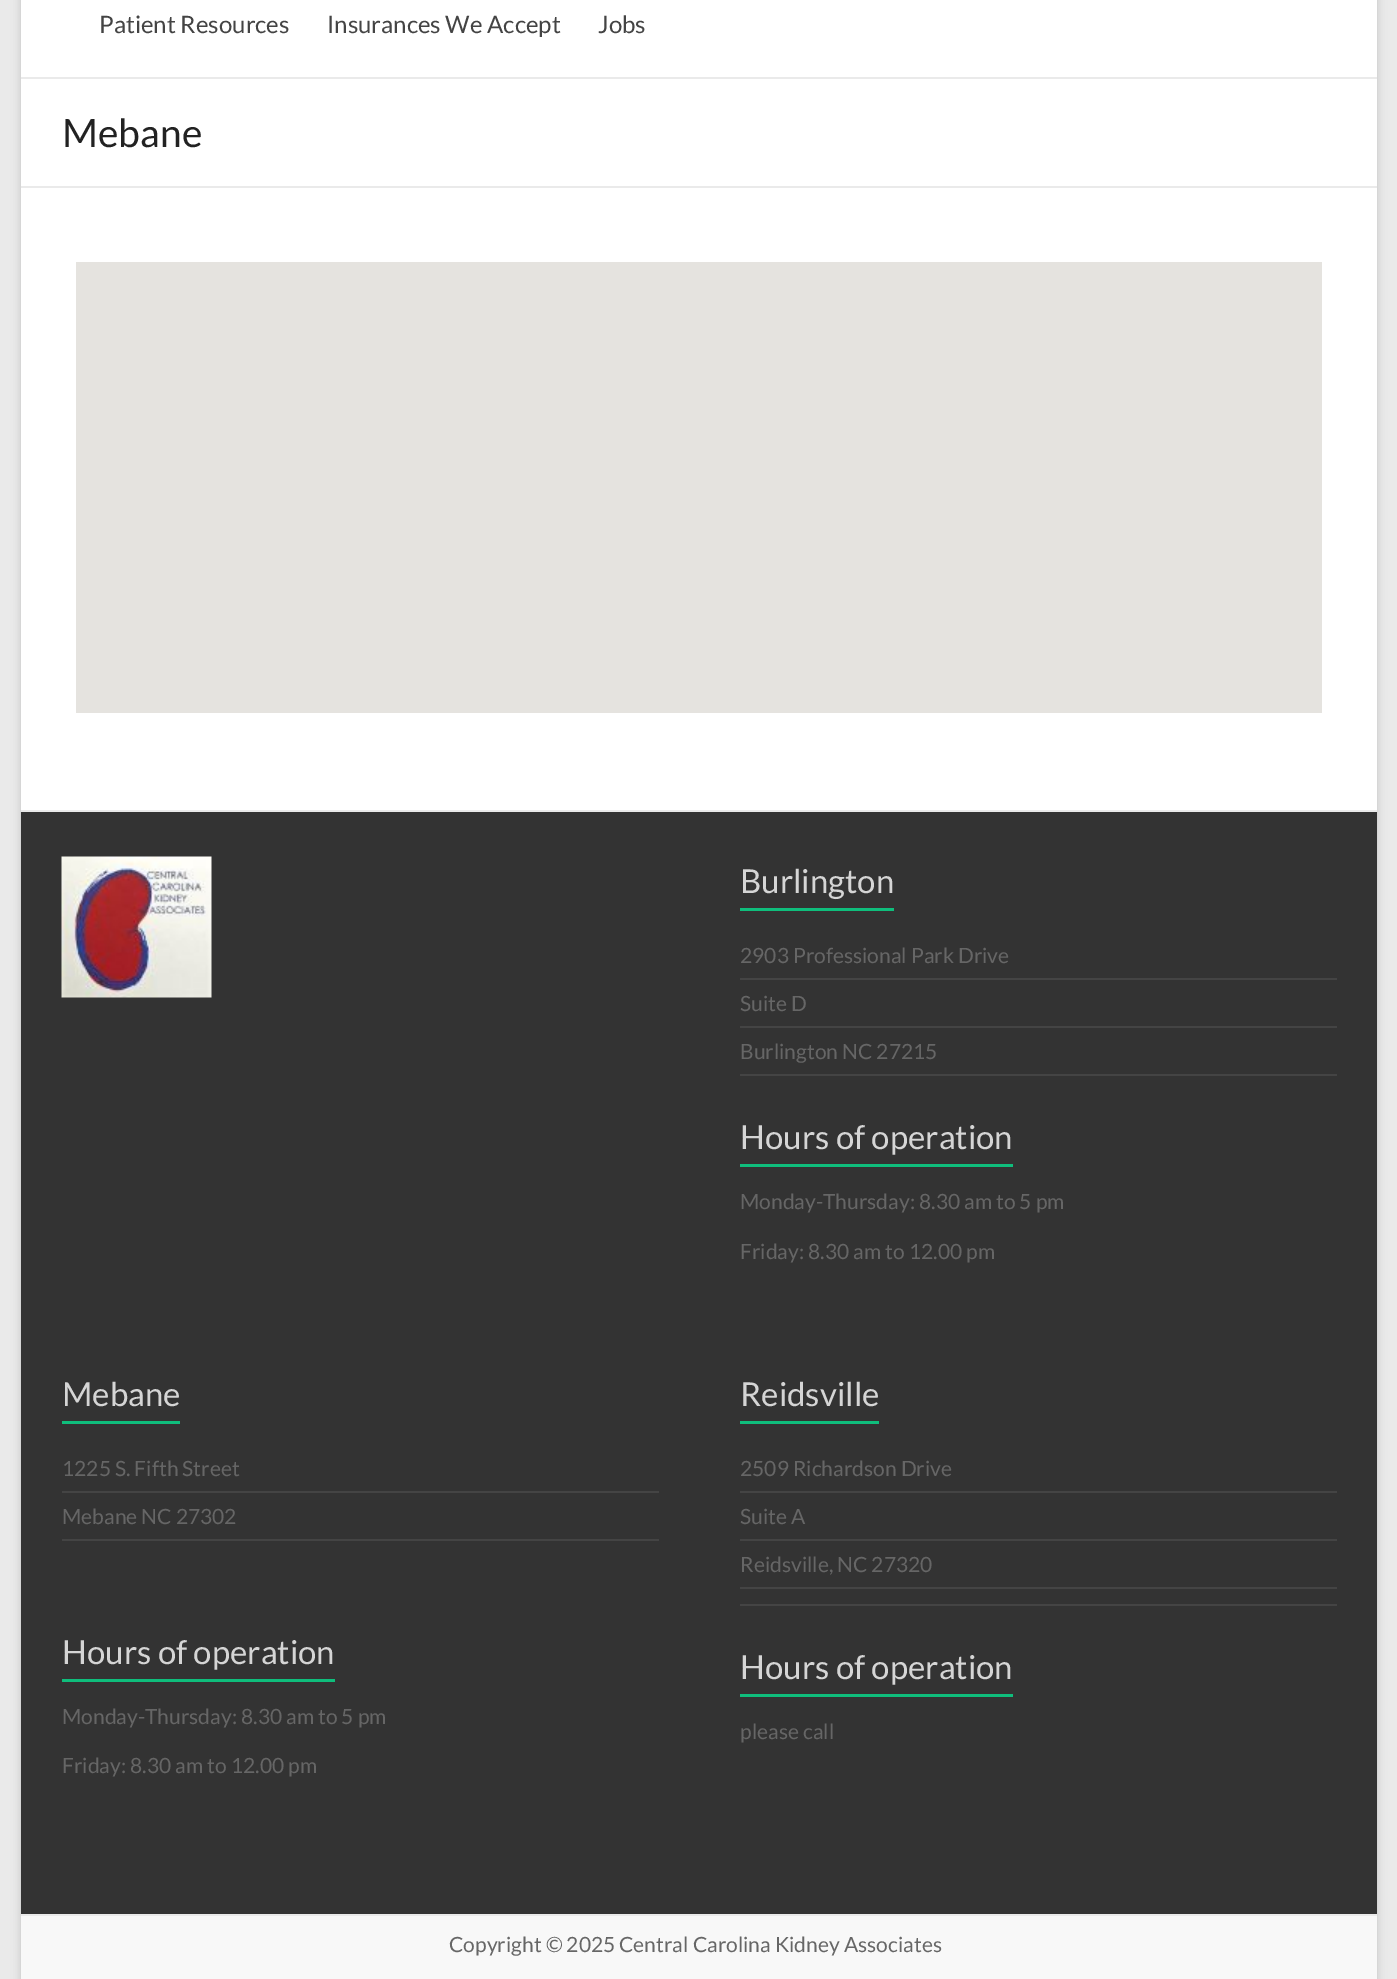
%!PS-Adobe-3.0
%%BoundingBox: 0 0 1397 1979
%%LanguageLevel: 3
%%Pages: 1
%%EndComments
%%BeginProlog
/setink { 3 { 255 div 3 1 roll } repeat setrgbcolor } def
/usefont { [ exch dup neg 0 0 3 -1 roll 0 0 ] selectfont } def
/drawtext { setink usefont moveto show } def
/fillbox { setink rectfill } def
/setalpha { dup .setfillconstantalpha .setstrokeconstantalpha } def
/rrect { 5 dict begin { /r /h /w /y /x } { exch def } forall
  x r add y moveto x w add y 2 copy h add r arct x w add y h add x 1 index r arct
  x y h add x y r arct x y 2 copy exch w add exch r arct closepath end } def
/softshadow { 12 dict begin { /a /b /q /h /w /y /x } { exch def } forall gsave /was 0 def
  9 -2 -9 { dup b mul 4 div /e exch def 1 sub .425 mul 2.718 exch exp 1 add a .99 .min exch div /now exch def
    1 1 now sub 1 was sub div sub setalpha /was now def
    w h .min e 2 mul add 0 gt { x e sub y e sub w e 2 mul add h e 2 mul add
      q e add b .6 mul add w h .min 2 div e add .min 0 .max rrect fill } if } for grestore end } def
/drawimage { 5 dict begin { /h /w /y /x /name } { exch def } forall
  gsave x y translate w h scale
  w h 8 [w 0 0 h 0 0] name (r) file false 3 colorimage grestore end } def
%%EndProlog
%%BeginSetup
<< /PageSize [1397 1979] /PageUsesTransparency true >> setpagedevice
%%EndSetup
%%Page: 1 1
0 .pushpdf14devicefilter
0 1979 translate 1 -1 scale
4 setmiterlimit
0 0 1397 1979 234 234 234 fillbox
100 100 100 setink
21 -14 1356 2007 0 4.5 0.3 softshadow
21 0 1356 810 255 255 255 fillbox
21 77 1356 2 234 234 234 fillbox
(Patient Resources) 99 33 /Lato-Regular 24 68 68 68 drawtext
(Insurances We Accept) 327 33 /Lato-Regular 24 68 68 68 drawtext
(Jobs) 598 33 /Lato-Regular 24 68 68 68 drawtext
21 186 1356 2 234 234 234 fillbox
(Mebane) 62 147 /Lato-Regular 39 34 34 34 drawtext
76 262 1246 451 229 227 223 fillbox
21 812 1356 1102 51 51 51 fillbox
21 810 1356 2 234 234 234 fillbox
(assets/img1.rgb) 61 856 151 142 drawimage
(Burlington) 740 893 /Lato-Regular 33 213 213 213 drawtext
740 908 154 3 15 190 124 fillbox
740 978 597 2 68 68 68 fillbox
(2903 Professional Park Drive) 740 963 /Lato-Regular 21 102 102 102 drawtext
740 1026 597 2 68 68 68 fillbox
(Suite D) 740 1011 /Lato-Regular 21 102 102 102 drawtext
740 1074 597 2 68 68 68 fillbox
(Burlington NC 27215) 740 1059 /Lato-Regular 21 102 102 102 drawtext
(Hours of operation) 740 1149 /Lato-Regular 33 213 213 213 drawtext
740 1164 273 3 15 190 124 fillbox
(Monday-Thursday: 8.30 am to 5 pm) 740 1209 /Lato-Regular 21 102 102 102 drawtext
(Friday: 8.30 am to 12.00 pm) 740 1259 /Lato-Regular 21 102 102 102 drawtext
(Mebane) 62 1406 /Lato-Regular 33 213 213 213 drawtext
62 1421 118 3 15 190 124 fillbox
62 1491 597 2 68 68 68 fillbox
(1225 S. Fifth Street) 62 1476 /Lato-Regular 21 102 102 102 drawtext
62 1539 597 2 68 68 68 fillbox
(Mebane NC 27302) 62 1524 /Lato-Regular 21 102 102 102 drawtext
(Hours of operation) 62 1664 /Lato-Regular 33 213 213 213 drawtext
62 1679 273 3 15 190 124 fillbox
(Monday-Thursday: 8.30 am to 5 pm) 62 1724 /Lato-Regular 21 102 102 102 drawtext
(Friday: 8.30 am to 12.00 pm) 62 1773 /Lato-Regular 21 102 102 102 drawtext
(Reidsville) 740 1406 /Lato-Regular 33 213 213 213 drawtext
740 1421 139 3 15 190 124 fillbox
740 1491 597 2 68 68 68 fillbox
(2509 Richardson Drive) 740 1476 /Lato-Regular 21 102 102 102 drawtext
740 1539 597 2 68 68 68 fillbox
(Suite A) 740 1524 /Lato-Regular 21 102 102 102 drawtext
740 1587 597 2 68 68 68 fillbox
(Reidsville, NC 27320) 740 1572 /Lato-Regular 21 102 102 102 drawtext
740 1604 597 2 68 68 68 fillbox
(Hours of operation) 740 1679 /Lato-Regular 33 213 213 213 drawtext
740 1694 273 3 15 190 124 fillbox
(please call) 740 1739 /Lato-Regular 21 102 102 102 drawtext
21 1916 1356 63 248 248 248 fillbox
21 1914 1356 2 234 234 234 fillbox
(Copyright © 2025 Central Carolina Kidney Associates) 449 1952 /Lato-Regular 21 102 102 102 drawtext
.poppdf14devicefilter showpage
%%EOF
